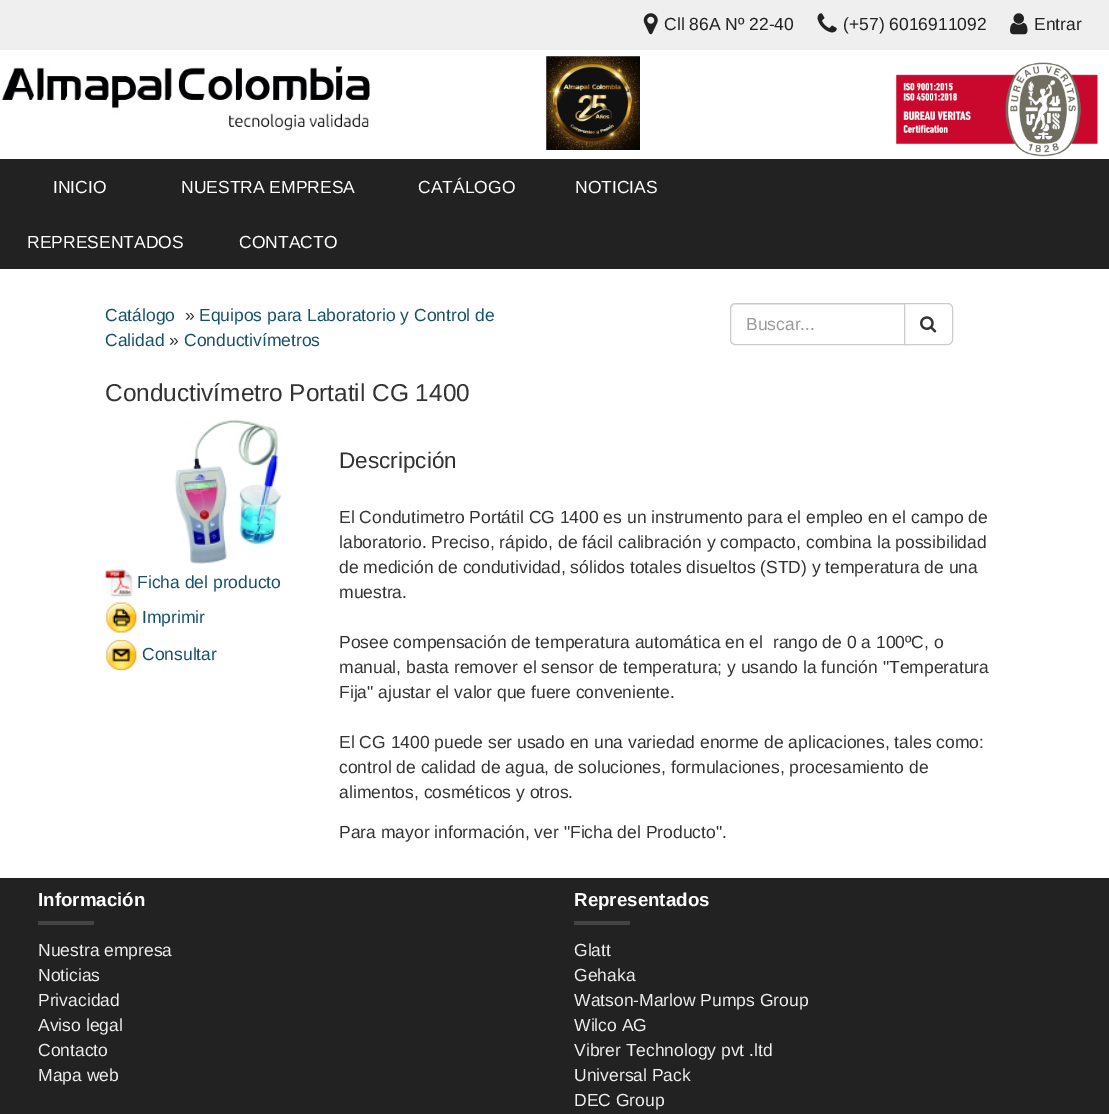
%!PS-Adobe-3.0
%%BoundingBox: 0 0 1109 1114
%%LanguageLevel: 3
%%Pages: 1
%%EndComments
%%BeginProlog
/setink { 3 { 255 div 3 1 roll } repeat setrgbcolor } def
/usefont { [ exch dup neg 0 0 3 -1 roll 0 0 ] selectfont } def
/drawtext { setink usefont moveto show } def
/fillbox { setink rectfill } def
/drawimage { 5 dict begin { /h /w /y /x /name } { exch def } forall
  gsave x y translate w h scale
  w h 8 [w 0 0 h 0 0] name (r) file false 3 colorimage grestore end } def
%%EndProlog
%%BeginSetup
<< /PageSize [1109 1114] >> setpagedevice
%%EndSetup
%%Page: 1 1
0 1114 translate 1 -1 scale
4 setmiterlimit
0 0 1109 1114 255 255 255 fillbox
0 0 1109 50 239 239 239 fillbox
(assets/img1.rgb) 643 13 15 22 drawimage
(Cll 86A Nº 22-40) 664 30 /LiberationSans-Regular 17.5 34 34 34 drawtext
(assets/img2.rgb) 817 13 20 20 drawimage
(\(+57\) 6016911092) 843 30 /LiberationSans-Regular 17.5 34 34 34 drawtext
(assets/img3.rgb) 1010 13 18 22 drawimage
(Entrar) 1034 30 /LiberationSans-Regular 17.5 34 34 34 drawtext
(assets/img4.rgb) 1 66 369 65 drawimage
(assets/img5.rgb) 546 56 94 94 drawimage
(assets/img6.rgb) 896 62 202 95 drawimage
0 159 1109 110 34 34 34 fillbox
(INICIO) 53 193 /LiberationSans-Regular 17.5 255 255 255 drawtext
(NUESTRA EMPRESA) 181 193 /LiberationSans-Regular 17.5 255 255 255 drawtext
(CATÁLOGO) 418 193 /LiberationSans-Regular 17.5 255 255 255 drawtext
(NOTICIAS) 575 193 /LiberationSans-Regular 17.5 255 255 255 drawtext
(REPRESENTADOS) 27 248 /LiberationSans-Regular 17.5 255 255 255 drawtext
(CONTACTO) 239 248 /LiberationSans-Regular 17.5 255 255 255 drawtext
(Catálogo) 105 321 /LiberationSans-Regular 17.5 20 81 109 drawtext
(») 185 321 /LiberationSans-Regular 17.5 51 51 51 drawtext
(Equipos para Laboratorio y Control de) 199 321 /LiberationSans-Regular 17.5 20 81 109 drawtext
(Calidad) 105 346 /LiberationSans-Regular 17.5 20 81 109 drawtext
(») 169 346 /LiberationSans-Regular 17.5 51 51 51 drawtext
(Conductivímetros) 184 346 /LiberationSans-Regular 17.5 20 81 109 drawtext
236 236 236 setink
735 305 moveto 904 305 lineto 904 304 lineto 735 304 lineto 732 304 731 306 731 309 curveto 731 307 733 305 735 305 curveto closepath fill
204 204 204 setink
735 303.5 moveto 904.5 303.5 lineto 904.5 344.5 lineto 735 344.5 lineto 732.5 344.5 730.5 342.5 730.5 340 curveto 730.5 308 lineto 730.5 305.5 732.5 303.5 735 303.5 curveto closepath stroke
(Buscar...) 746 330 /LiberationSans-Regular 17.5 153 153 153 drawtext
255 255 255 setink
904.5 303.5 moveto 948 303.5 lineto 950.5 303.5 952.5 305.5 952.5 308 curveto 952.5 340 lineto 952.5 342.5 950.5 344.5 948 344.5 curveto 904.5 344.5 lineto closepath gsave fill grestore
204 204 204 setink
stroke
(assets/img7.rgb) 920 316 17 17 drawimage
(Conductivímetro Portatil CG 1400) 105 401 /LiberationSans-Regular 24.4 51 51 51 drawtext
(assets/img8.rgb) 174 419 108 145 drawimage
(assets/img9.rgb) 105 568 28 29 drawimage
(Ficha del producto) 137 588 /LiberationSans-Regular 17.5 20 81 109 drawtext
(assets/img10.rgb) 106 602 31 31 drawimage
(Imprimir) 142 623 /LiberationSans-Regular 17.5 20 81 109 drawtext
(assets/img11.rgb) 106 639 31 32 drawimage
(Consultar) 142 660 /LiberationSans-Regular 17.5 20 81 109 drawtext
(Descripción) 339 468 /LiberationSans-Regular 22.5 51 51 51 drawtext
(El Condutimetro Portátil CG 1400 es un instrumento para el empleo en el campo de) 339 523 /LiberationSans-Regular 17.5 51 51 51 drawtext
(laboratorio. Preciso, rápido, de fácil calibración y compacto, combina la possibilidad) 339 548 /LiberationSans-Regular 17.5 51 51 51 drawtext
(de medición de condutividad, sólidos totales disueltos \(STD\) y temperatura de una) 339 573 /LiberationSans-Regular 17.5 51 51 51 drawtext
(muestra.) 339 598 /LiberationSans-Regular 17.5 51 51 51 drawtext
(Posee compensación de temperatura automática en el  rango de 0 a 100ºC, o) 339 648 /LiberationSans-Regular 17.5 51 51 51 drawtext
(manual, basta remover el sensor de temperatura; y usando la función "Temperatura) 339 673 /LiberationSans-Regular 17.5 51 51 51 drawtext
(Fija" ajustar el valor que fuere conveniente.) 339 698 /LiberationSans-Regular 17.5 51 51 51 drawtext
(El CG 1400 puede ser usado en una variedad enorme de aplicaciones, tales como:) 339 748 /LiberationSans-Regular 17.5 51 51 51 drawtext
(control de calidad de agua, de soluciones, formulaciones, procesamiento de) 339 773 /LiberationSans-Regular 17.5 51 51 51 drawtext
(alimentos, cosméticos y otros.) 339 798 /LiberationSans-Regular 17.5 51 51 51 drawtext
(Para mayor información, ver "Ficha del Producto".) 339 838 /LiberationSans-Regular 17.5 51 51 51 drawtext
0 878 1109 236 34 34 34 fillbox
(Información) 38 906 /LiberationSans-Bold 18.75 255 255 255 drawtext
38 921 56 4 68 68 68 fillbox
(Nuestra empresa) 38 956 /LiberationSans-Regular 17.5 238 238 238 drawtext
(Noticias) 38 981 /LiberationSans-Regular 17.5 238 238 238 drawtext
(Privacidad) 38 1006 /LiberationSans-Regular 17.5 238 238 238 drawtext
(Aviso legal) 38 1031 /LiberationSans-Regular 17.5 238 238 238 drawtext
(Contacto) 38 1056 /LiberationSans-Regular 17.5 238 238 238 drawtext
(Mapa web) 38 1081 /LiberationSans-Regular 17.5 238 238 238 drawtext
(Representados) 574 906 /LiberationSans-Bold 18.75 255 255 255 drawtext
574 921 56 4 68 68 68 fillbox
(Glatt) 574 956 /LiberationSans-Regular 17.5 238 238 238 drawtext
(Gehaka) 574 981 /LiberationSans-Regular 17.5 238 238 238 drawtext
(Watson-Marlow Pumps Group) 574 1006 /LiberationSans-Regular 17.5 238 238 238 drawtext
(Wilco AG) 574 1031 /LiberationSans-Regular 17.5 238 238 238 drawtext
(Vibrer Technology pvt .ltd) 574 1056 /LiberationSans-Regular 17.5 238 238 238 drawtext
(Universal Pack) 574 1081 /LiberationSans-Regular 17.5 238 238 238 drawtext
(DEC Group) 574 1106 /LiberationSans-Regular 17.5 238 238 238 drawtext
showpage
%%EOF
